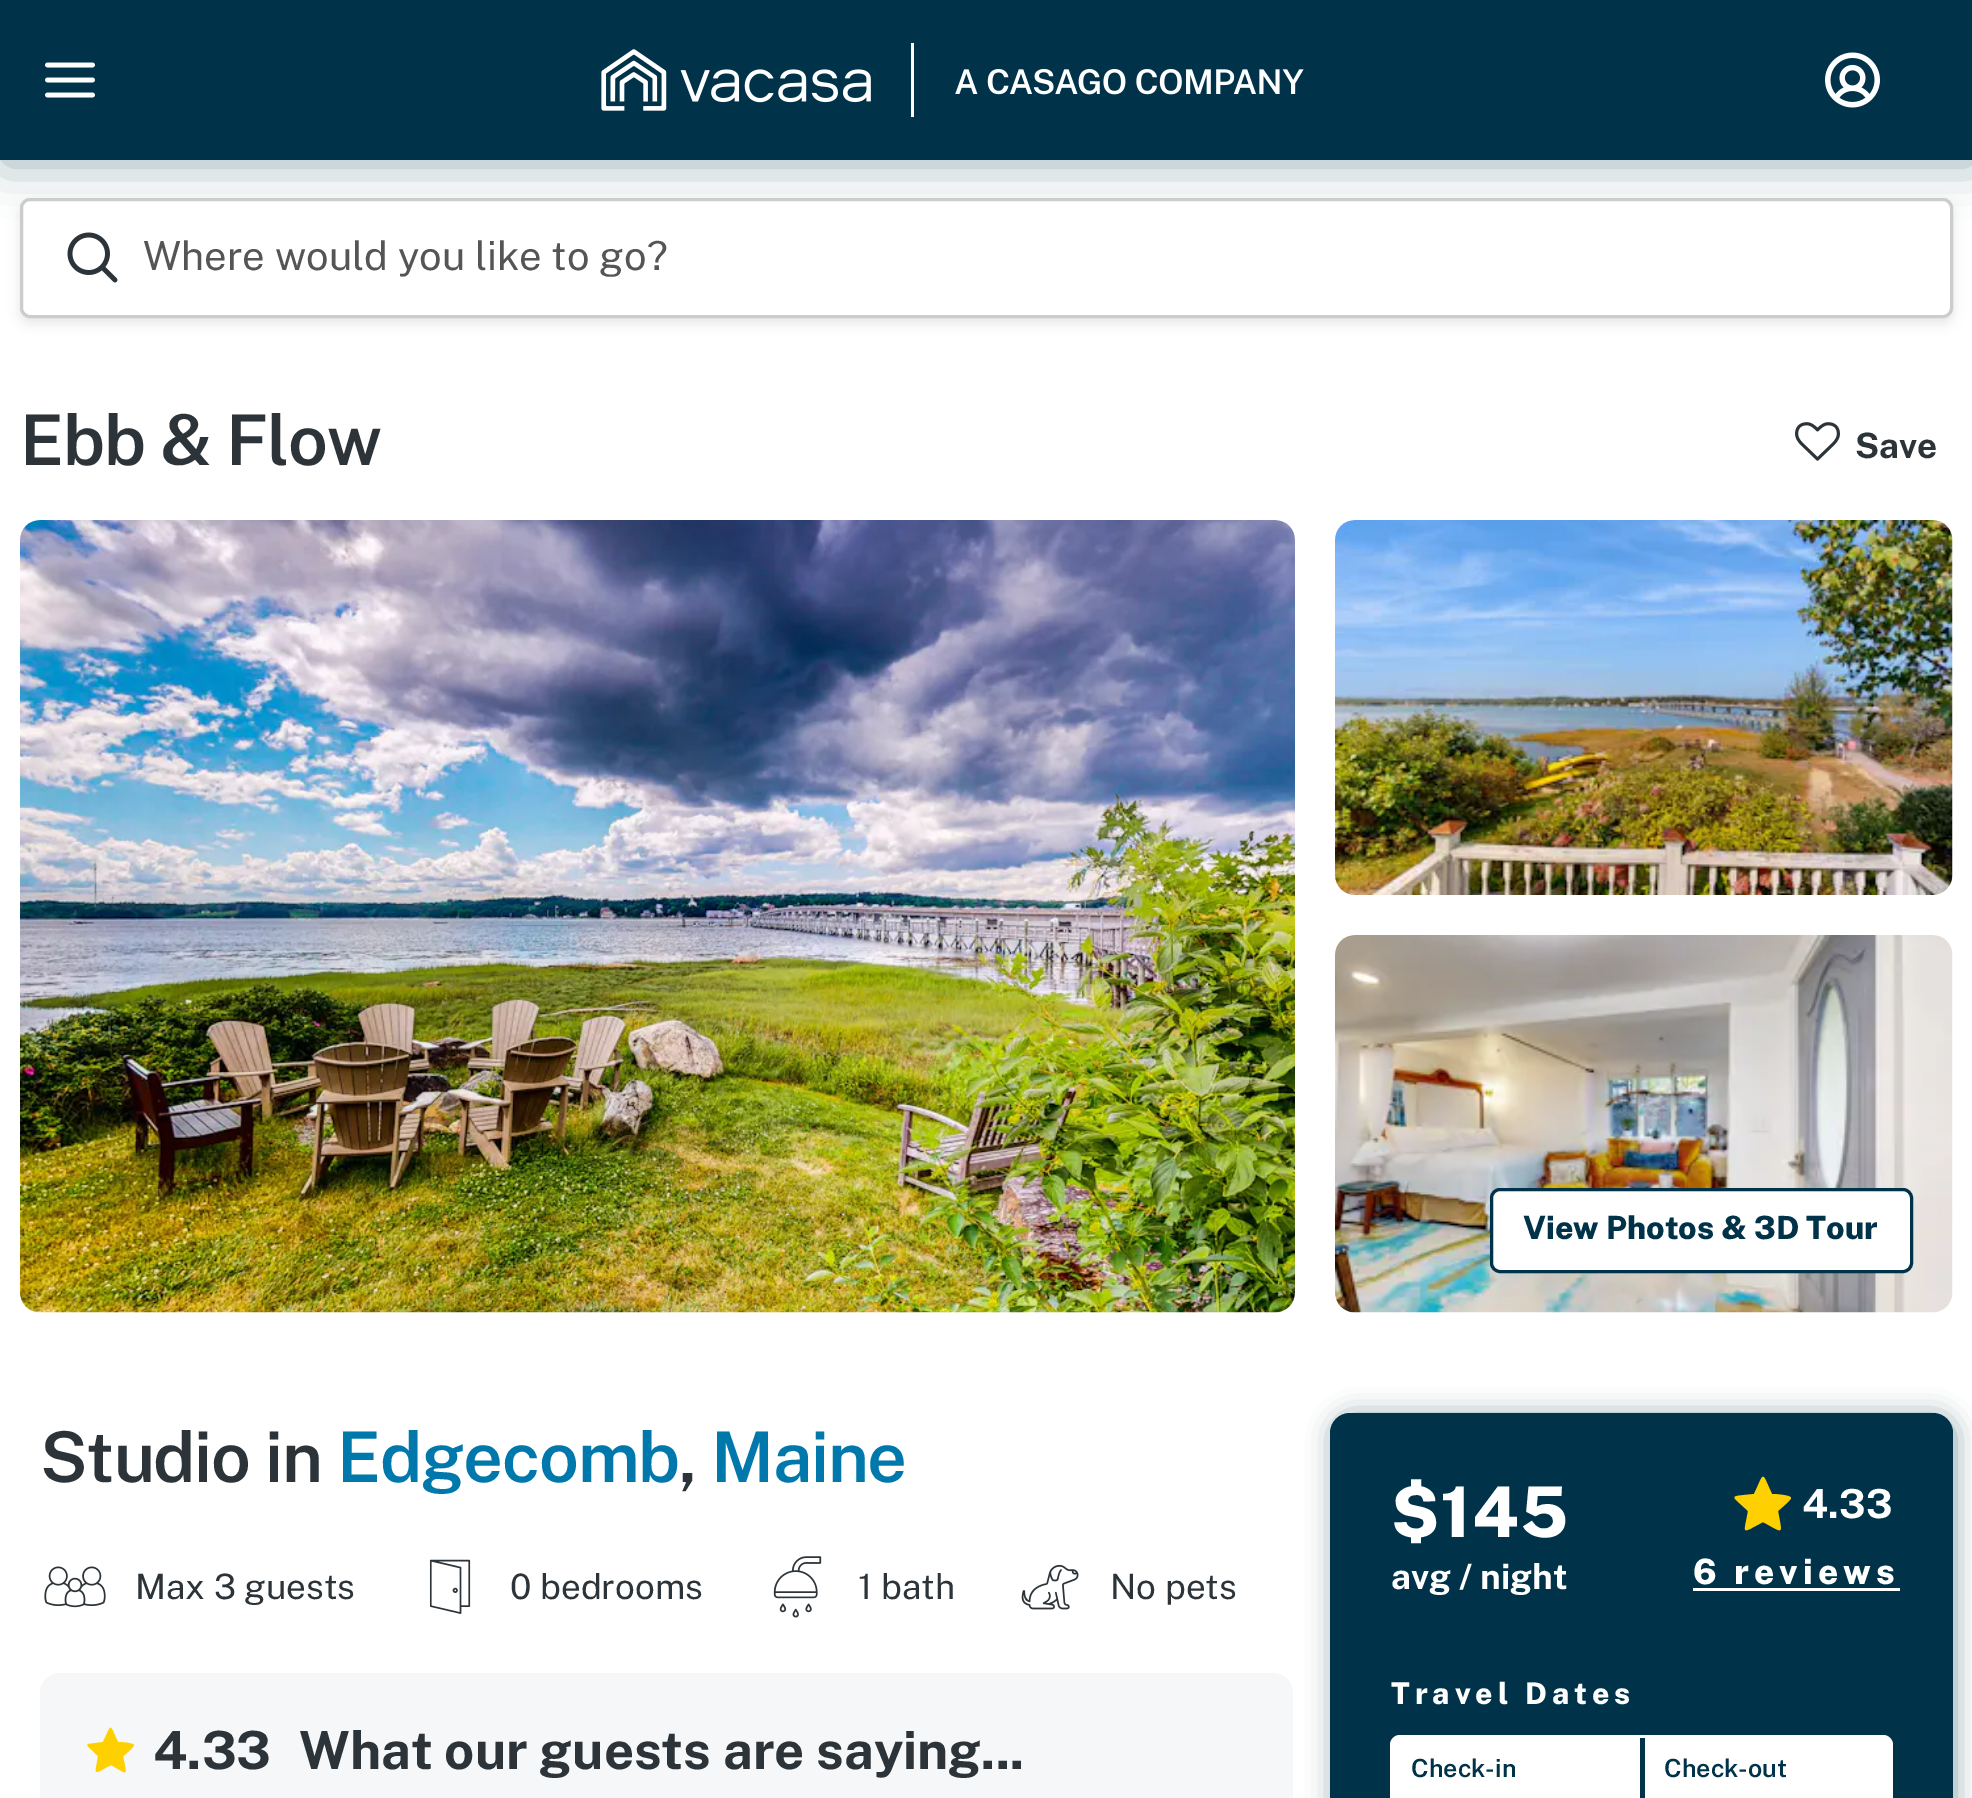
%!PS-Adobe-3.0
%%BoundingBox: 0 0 1972 1798
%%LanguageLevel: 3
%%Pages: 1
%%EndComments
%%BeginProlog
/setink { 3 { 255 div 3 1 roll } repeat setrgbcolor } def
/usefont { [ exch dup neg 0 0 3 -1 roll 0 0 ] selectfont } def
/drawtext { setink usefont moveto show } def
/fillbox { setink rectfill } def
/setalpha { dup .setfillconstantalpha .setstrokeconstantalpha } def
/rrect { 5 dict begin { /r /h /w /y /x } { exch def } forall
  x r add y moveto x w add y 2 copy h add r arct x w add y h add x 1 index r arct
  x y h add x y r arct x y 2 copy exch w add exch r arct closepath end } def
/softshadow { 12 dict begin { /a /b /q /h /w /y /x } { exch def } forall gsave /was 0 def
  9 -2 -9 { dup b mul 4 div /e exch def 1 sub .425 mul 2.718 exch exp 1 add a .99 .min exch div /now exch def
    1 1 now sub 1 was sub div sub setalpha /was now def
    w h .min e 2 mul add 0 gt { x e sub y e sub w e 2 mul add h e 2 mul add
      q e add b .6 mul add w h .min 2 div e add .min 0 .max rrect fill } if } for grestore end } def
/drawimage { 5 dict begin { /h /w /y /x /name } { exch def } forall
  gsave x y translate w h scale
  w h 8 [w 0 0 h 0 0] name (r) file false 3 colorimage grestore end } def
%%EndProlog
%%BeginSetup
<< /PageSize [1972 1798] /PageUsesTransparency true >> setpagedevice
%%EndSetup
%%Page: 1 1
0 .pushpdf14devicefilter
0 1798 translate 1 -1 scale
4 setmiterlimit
0 0 1972 1798 255 255 255 fillbox
0 51 73 setink
3 3 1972 160 0 25 0.4 softshadow
0 0 1972 160 0 51 73 fillbox
(assets/img1.rgb) 45 62 50 36 drawimage
(assets/img2.rgb) 601 43 703 74 drawimage
(assets/img3.rgb) 1825 52 55 56 drawimage
0 0 0 setink
20 203 1933 120 10 6 0.1 softshadow
255 255 255 setink
21.5 199.5 1930 117 8.5 rrect gsave fill grestore
204 204 204 setink
3 setlinewidth
stroke
(assets/img4.rgb) 67 232 51 51 drawimage
(Where would you like to go?) 143 270 /PublicSans-Regular 40 85 85 85 drawtext
/PublicSans-SemiBold 70 usefont
44 52 57 setink
20 465 moveto -1.25 0 (Ebb & Flow) ashow
(assets/img5.rgb) 1795 422 45 39 drawimage
(Save) 1855 458 /PublicSans-Bold 35 44 52 57 drawtext
(assets/img6.rgb) 20 520 1275 793 drawimage
(assets/img7.rgb) 1335 520 618 375 drawimage
(assets/img8.rgb) 1335 935 618 378 drawimage
255 255 255 setink
1491.5 1189.5 420 82 8.5 rrect gsave fill grestore
0 51 73 setink
stroke
(View Photos & 3D Tour) 1523 1239 /PublicSans-ExtraBold 32 0 51 73 drawtext
/PublicSans-SemiBold 70 usefont
44 52 57 setink
40 1482 moveto -1.25 0 (Studio in) ashow
0 120 171 setink
337 1482 moveto -1.25 0 (Edgecomb) ashow
44 52 57 setink
679 1482 moveto -1.25 0 (,) ashow
0 120 171 setink
711 1482 moveto -1.25 0 (Maine) ashow
(assets/img9.rgb) 44 1566 62 42 drawimage
(Max 3 guests) 135 1599 /PublicSans-Regular 35 44 52 57 drawtext
(assets/img10.rgb) 429 1559 42 55 drawimage
(0 bedrooms) 510 1599 /PublicSans-Regular 35 44 52 57 drawtext
(assets/img11.rgb) 773 1556 49 62 drawimage
(1 bath) 858 1599 /PublicSans-Regular 35 44 52 57 drawtext
(assets/img12.rgb) 1021 1564 58 46 drawimage
(No pets) 1110 1599 /PublicSans-Regular 35 44 52 57 drawtext
245 247 248 setink
40 1673 1253 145 20 rrect fill
255 208 0 setink
134 1745 moveto 134 1747 125 1755 123 1756 curveto 127 1777 129 1775 111 1765 curveto 92 1775 95 1776 98 1756 curveto 84 1742 82 1745 103 1742 curveto 112 1723 109 1723 118 1742 curveto 121 1742 134 1743 134 1745 curveto closepath fill
(4.33) 153 1769 /PublicSans-Bold 52.5 44 52 57 drawtext
(What our guests are saying...) 299 1769 /PublicSans-Bold 52.5 44 52 57 drawtext
0 51 73 setink
1333 1415 622 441 20 12.5 0.45 softshadow
1330 1413 623 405 20 rrect fill
/PublicSans-ExtraBold 70 usefont
255 255 255 setink
1391 1537 moveto 1 0 ($145) ashow
255 208 0 setink
1791 1498 moveto 1791 1500 1780 1509 1778 1511 curveto 1782 1535 1785 1534 1763 1522 curveto 1740 1534 1744 1535 1748 1511 curveto 1730 1494 1728 1497 1754 1494 curveto 1765 1471 1761 1471 1772 1494 curveto 1775 1494 1791 1495 1791 1498 curveto closepath fill
(4.33) 1802 1518 /PublicSans-Bold 40 255 255 255 drawtext
(avg / night) 1391 1589 /PublicSans-Bold 35 255 255 255 drawtext
/PublicSans-ExtraBold 35 usefont
1693 1584 moveto 5 0 (6 reviews) ashow
1693 1588 207 3 255 255 255 fillbox
/PublicSans-ExtraBold 30 usefont
1391 1704 moveto 5 0 (Travel Dates) ashow
1390 1735 503 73 10 rrect fill
1640 1738 5 60 0 51 73 fillbox
(Check-in) 1411 1777 /PublicSans-SemiBold 25 0 51 73 drawtext
(Check-out) 1664 1777 /PublicSans-SemiBold 25 0 51 73 drawtext
.poppdf14devicefilter showpage
%%EOF
